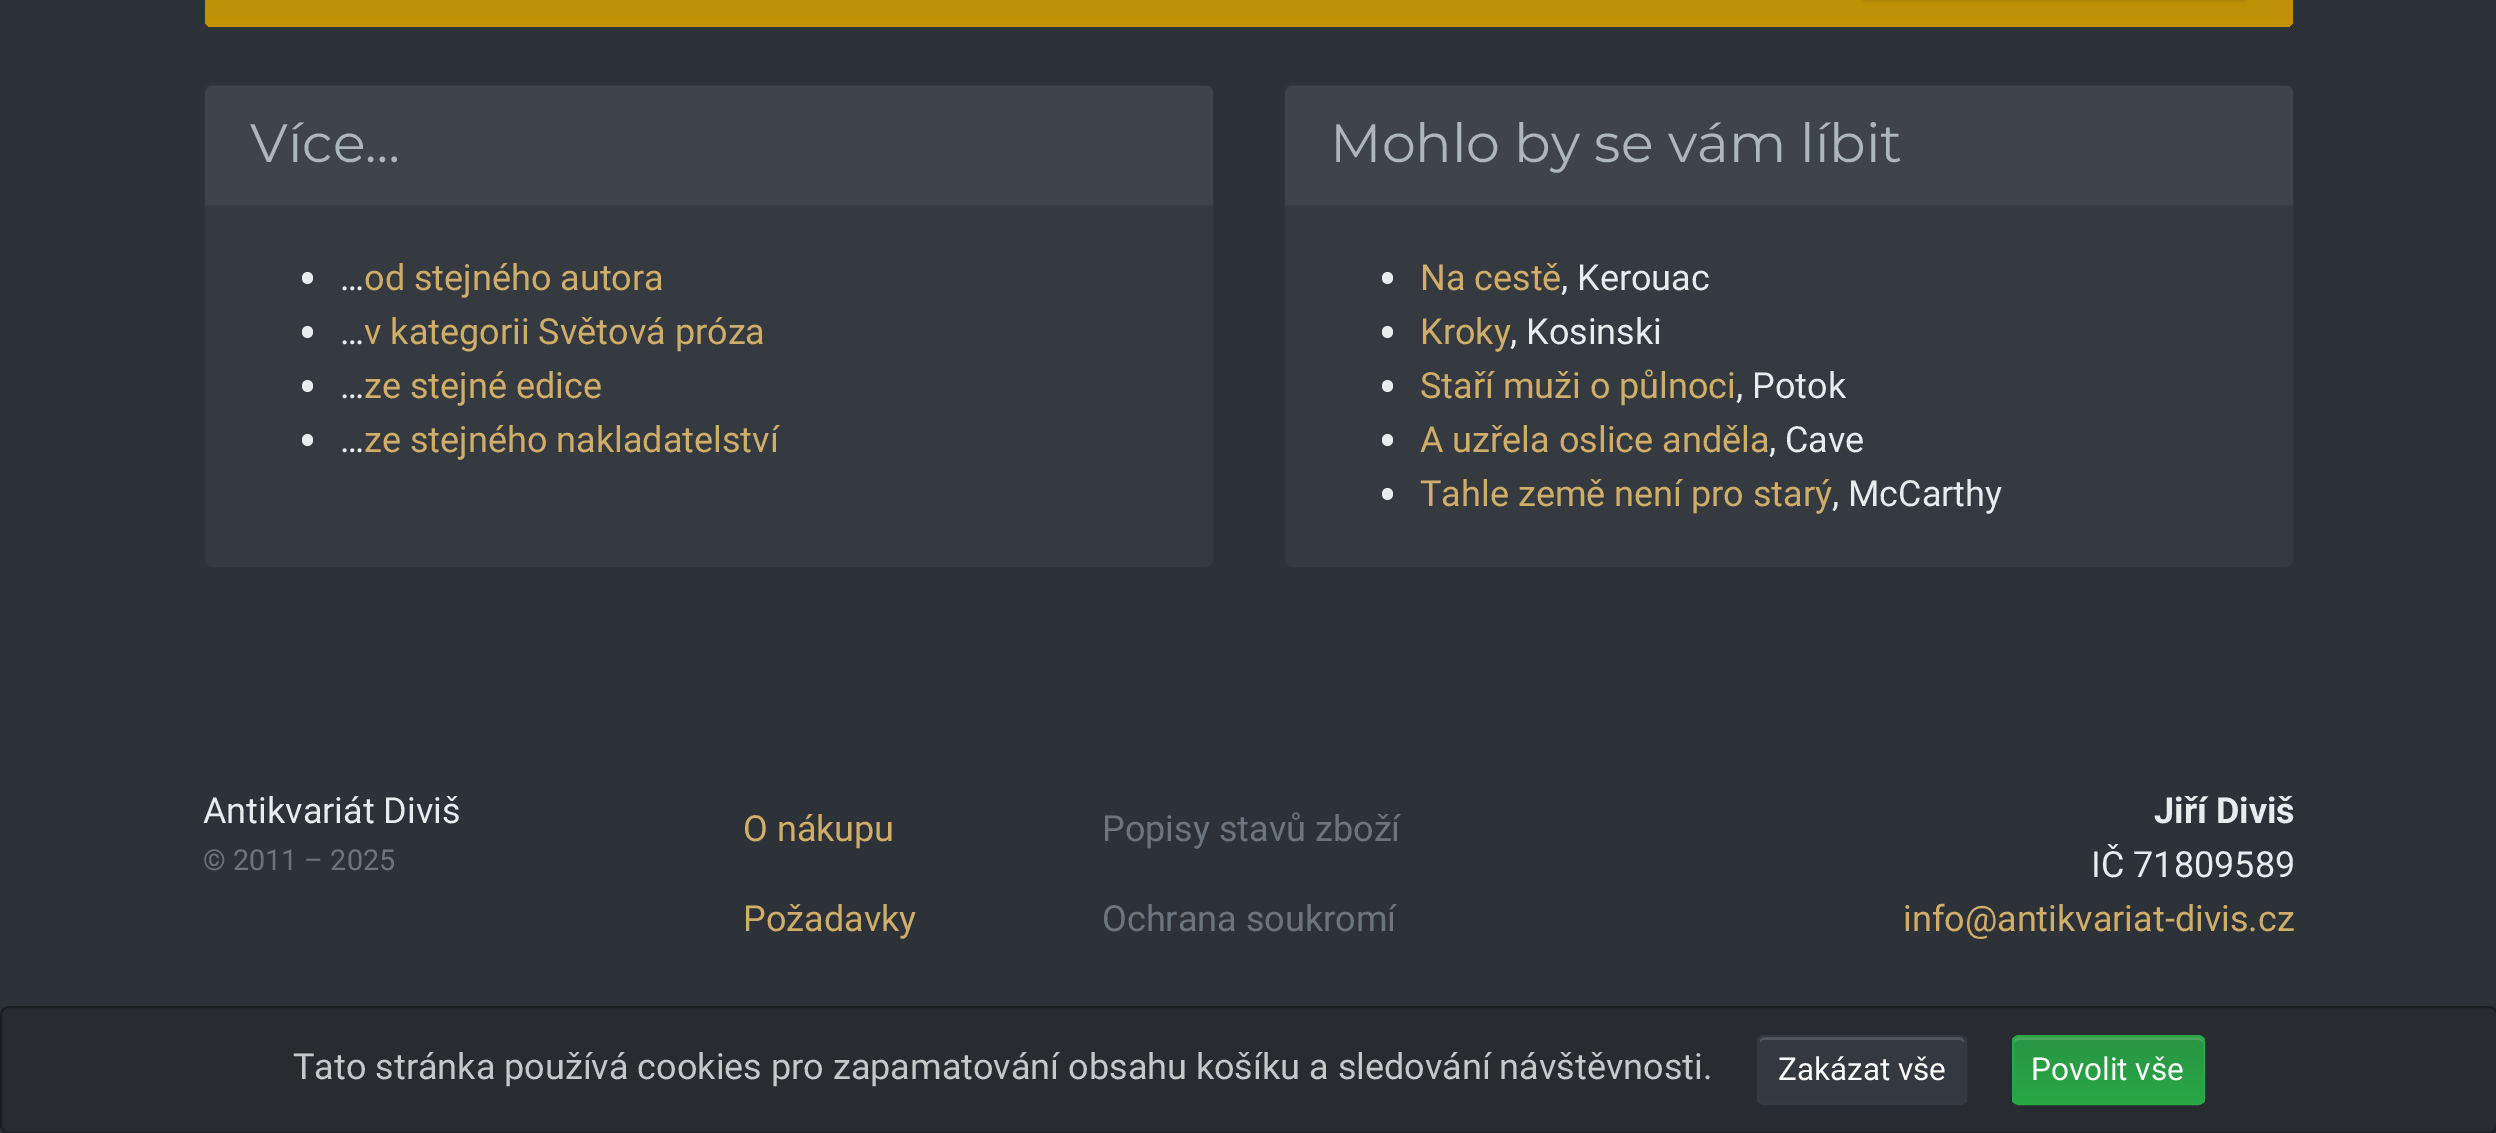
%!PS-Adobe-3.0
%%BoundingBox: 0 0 2496 1133
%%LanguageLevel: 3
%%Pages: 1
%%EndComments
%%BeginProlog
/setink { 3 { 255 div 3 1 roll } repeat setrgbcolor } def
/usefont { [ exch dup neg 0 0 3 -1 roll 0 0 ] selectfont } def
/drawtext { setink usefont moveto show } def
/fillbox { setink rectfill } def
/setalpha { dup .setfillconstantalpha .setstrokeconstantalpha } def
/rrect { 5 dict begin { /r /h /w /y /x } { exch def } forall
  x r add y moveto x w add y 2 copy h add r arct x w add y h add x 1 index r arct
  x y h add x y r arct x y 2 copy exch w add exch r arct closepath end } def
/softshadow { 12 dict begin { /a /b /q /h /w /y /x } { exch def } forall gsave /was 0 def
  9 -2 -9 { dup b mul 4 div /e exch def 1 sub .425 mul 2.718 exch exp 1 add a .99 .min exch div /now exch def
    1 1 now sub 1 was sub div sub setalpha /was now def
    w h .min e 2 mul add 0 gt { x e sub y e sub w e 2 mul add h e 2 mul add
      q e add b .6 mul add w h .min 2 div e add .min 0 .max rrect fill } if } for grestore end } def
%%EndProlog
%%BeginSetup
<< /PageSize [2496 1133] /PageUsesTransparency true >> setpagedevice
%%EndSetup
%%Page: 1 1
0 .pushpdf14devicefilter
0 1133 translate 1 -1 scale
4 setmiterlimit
0 0 2496 1133 45 50 56 fillbox
52 58 64 setink
203 -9 2092 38 9 rrect fill
0.12 setalpha
0 0 0 setink
2 setlinewidth
204 -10 2090 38 8 rrect stroke
1 setalpha
gsave 205 -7 moveto 2293 -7 lineto 2293 20 lineto 2293 24 2290 27 2286 27 curveto 212 27 lineto 208 27 205 24 205 20 curveto closepath clip newpath
<< /ShadingType 2 /ColorSpace /DeviceRGB /Coords [1249 -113 1249 27] /Extend [true true] /Function << /FunctionType 2 /Domain [0 1] /C0 [0.675 0.518 0.051] /C1 [0.761 0.576 0.02] /N 1 >> >> shfill grestore
1861 -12 387 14 9 1 0.07 softshadow
52 58 64 setink
203 83 1012 486 9 rrect fill
0.12 setalpha
0 0 0 setink
204 84 1010 484 8 rrect stroke
1 setalpha
62 68 74 setink
212 86 moveto 1206 86 lineto 1210 86 1213 89 1213 93 curveto 1213 207 lineto 205 207 lineto 205 93 lineto 205 89 208 86 212 86 curveto closepath fill
205 205 1008 2 54 60 65 fillbox
(Více…) 250 162 /Montserrat-Thin 54 173 181 189 drawtext
233 236 239 setink
302 272 11 12 5.5 rrect fill
(od stejného autora) 364 290 /Roboto-Regular 36 208 173 104 drawtext
(…) 340 290 /Roboto-Regular 36 233 236 239 drawtext
302 326 11 12 5.5 rrect fill
(v kategorii Světová próza) 364 344 /Roboto-Regular 36 208 173 104 drawtext
(…) 340 344 /Roboto-Regular 36 233 236 239 drawtext
302 380 11 12 5.5 rrect fill
(ze stejné edice) 364 398 /Roboto-Regular 36 208 173 104 drawtext
(…) 340 398 /Roboto-Regular 36 233 236 239 drawtext
302 434 11 12 5.5 rrect fill
(ze stejného nakladatelství) 364 452 /Roboto-Regular 36 208 173 104 drawtext
(…) 340 452 /Roboto-Regular 36 233 236 239 drawtext
52 58 64 setink
1283 83 1012 486 9 rrect fill
0.12 setalpha
0 0 0 setink
1284 84 1010 484 8 rrect stroke
1 setalpha
62 68 74 setink
1292 86 moveto 2286 86 lineto 2290 86 2293 89 2293 93 curveto 2293 207 lineto 1285 207 lineto 1285 93 lineto 1285 89 1288 86 1292 86 curveto closepath fill
1285 205 1008 2 54 60 65 fillbox
(Mohlo by se vám líbit) 1330 162 /Montserrat-Thin 54 173 181 189 drawtext
233 236 239 setink
1382 272 11 12 5.5 rrect fill
(Na cestě) 1420 290 /Roboto-Regular 36 208 173 104 drawtext
(, Kerouac) 1561 290 /Roboto-Regular 36 233 236 239 drawtext
1382 326 11 12 5.5 rrect fill
(Kroky) 1420 344 /Roboto-Regular 36 208 173 104 drawtext
(, Kosinski) 1510 344 /Roboto-Regular 36 233 236 239 drawtext
1382 380 11 12 5.5 rrect fill
(Staří muži o půlnoci) 1420 398 /Roboto-Regular 36 208 173 104 drawtext
(, Potok) 1736 398 /Roboto-Regular 36 233 236 239 drawtext
1382 434 11 12 5.5 rrect fill
(A uzřela oslice anděla) 1420 452 /Roboto-Regular 36 208 173 104 drawtext
(, Cave) 1769 452 /Roboto-Regular 36 233 236 239 drawtext
1382 488 11 12 5.5 rrect fill
(Tahle země není pro starý) 1420 506 /Roboto-Regular 36 208 173 104 drawtext
(, McCarthy) 1832 506 /Roboto-Regular 36 233 236 239 drawtext
(Antikvariát Diviš) 203 823 /Roboto-Regular 36 233 236 239 drawtext
(© 2011 – 2025) 203 870 /Roboto-Regular 28.75 108 117 125 drawtext
(O nákupu) 743 841 /Roboto-Regular 36 208 173 104 drawtext
(Požadavky) 743 931 /Roboto-Regular 36 208 173 104 drawtext
(Popisy stavů zboží) 1102 841 /Roboto-Regular 36 108 117 125 drawtext
(Ochrana soukromí) 1102 931 /Roboto-Regular 36 108 117 125 drawtext
(Jiří Diviš) 2154 823 /Roboto-Bold 36 233 236 239 drawtext
(IČ 71809589) 2091 877 /Roboto-Regular 36 233 236 239 drawtext
(info@antikvariat-divis.cz) 1903 931 /Roboto-Regular 36 208 173 104 drawtext
gsave
0 1006 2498 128 9 rrect clip newpath
gsave 0 1008 moveto 2496 1008 lineto 2496 1132 lineto 0 1132 lineto closepath clip newpath
<< /ShadingType 2 /ColorSpace /DeviceRGB /Coords [1249 1008 1249 1132] /Extend [true true] /Function << /FunctionType 2 /Domain [0 1] /C0 [0.161 0.176 0.196] /C1 [0.157 0.173 0.192] /N 1 >> >> shfill grestore
grestore
27 30 33 setink
1 1007 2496 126 8 rrect stroke
(Tato stránka používá cookies pro zapamatování obsahu košíku a sledování návštěvnosti.) 293 1079 /Roboto-Regular 36 198 200 202 drawtext
gsave
1757 1035 210 70 7 rrect clip newpath
gsave 1757 1037 moveto 1967 1037 lineto 1967 1103 lineto 1757 1103 lineto closepath clip newpath
<< /ShadingType 2 /ColorSpace /DeviceRGB /Coords [1862 1037 1862 1103] /Extend [true true] /Function << /FunctionType 2 /Domain [0 1] /C0 [0.2 0.224 0.247] /C1 [0.204 0.227 0.251] /N 1 >> >> shfill grestore
grestore
82 87 92 setink
1764 1040 moveto 1959 1040 lineto 1962 1040 1964 1042 1964 1044 curveto 1964 1042 lineto 1964 1039 1962 1037 1959 1037 curveto 1765 1037 lineto 1762 1037 1760 1039 1760 1042 curveto 1760 1044 lineto 1760 1042 1762 1040 1764 1040 curveto closepath fill
52 58 64 setink
1758 1036 208 68 6 rrect stroke
(Zakázat vše) 1778 1080 /Roboto-Regular 31.5 255 255 255 drawtext
gsave
2012 1035 193 70 7 rrect clip newpath
gsave 2012 1037 moveto 2205 1037 lineto 2205 1103 lineto 2012 1103 lineto closepath clip newpath
<< /ShadingType 2 /ColorSpace /DeviceRGB /Coords [2108 1037 2108 1103] /Extend [true true] /Function << /FunctionType 2 /Domain [0 1] /C0 [0.161 0.584 0.263] /C1 [0.157 0.655 0.271] /N 1 >> >> shfill grestore
grestore
73 165 95 setink
2019 1040 moveto 2198 1040 lineto 2201 1040 2203 1042 2203 1044 curveto 2203 1042 lineto 2203 1039 2201 1037 2198 1037 curveto 2019 1037 lineto 2016 1037 2014 1039 2014 1042 curveto 2014 1044 lineto 2014 1042 2016 1040 2019 1040 curveto closepath fill
40 167 69 setink
2013 1036 191 68 6 rrect stroke
(Povolit vše) 2031 1080 /Roboto-Regular 31.5 255 255 255 drawtext
.poppdf14devicefilter showpage
%%EOF
